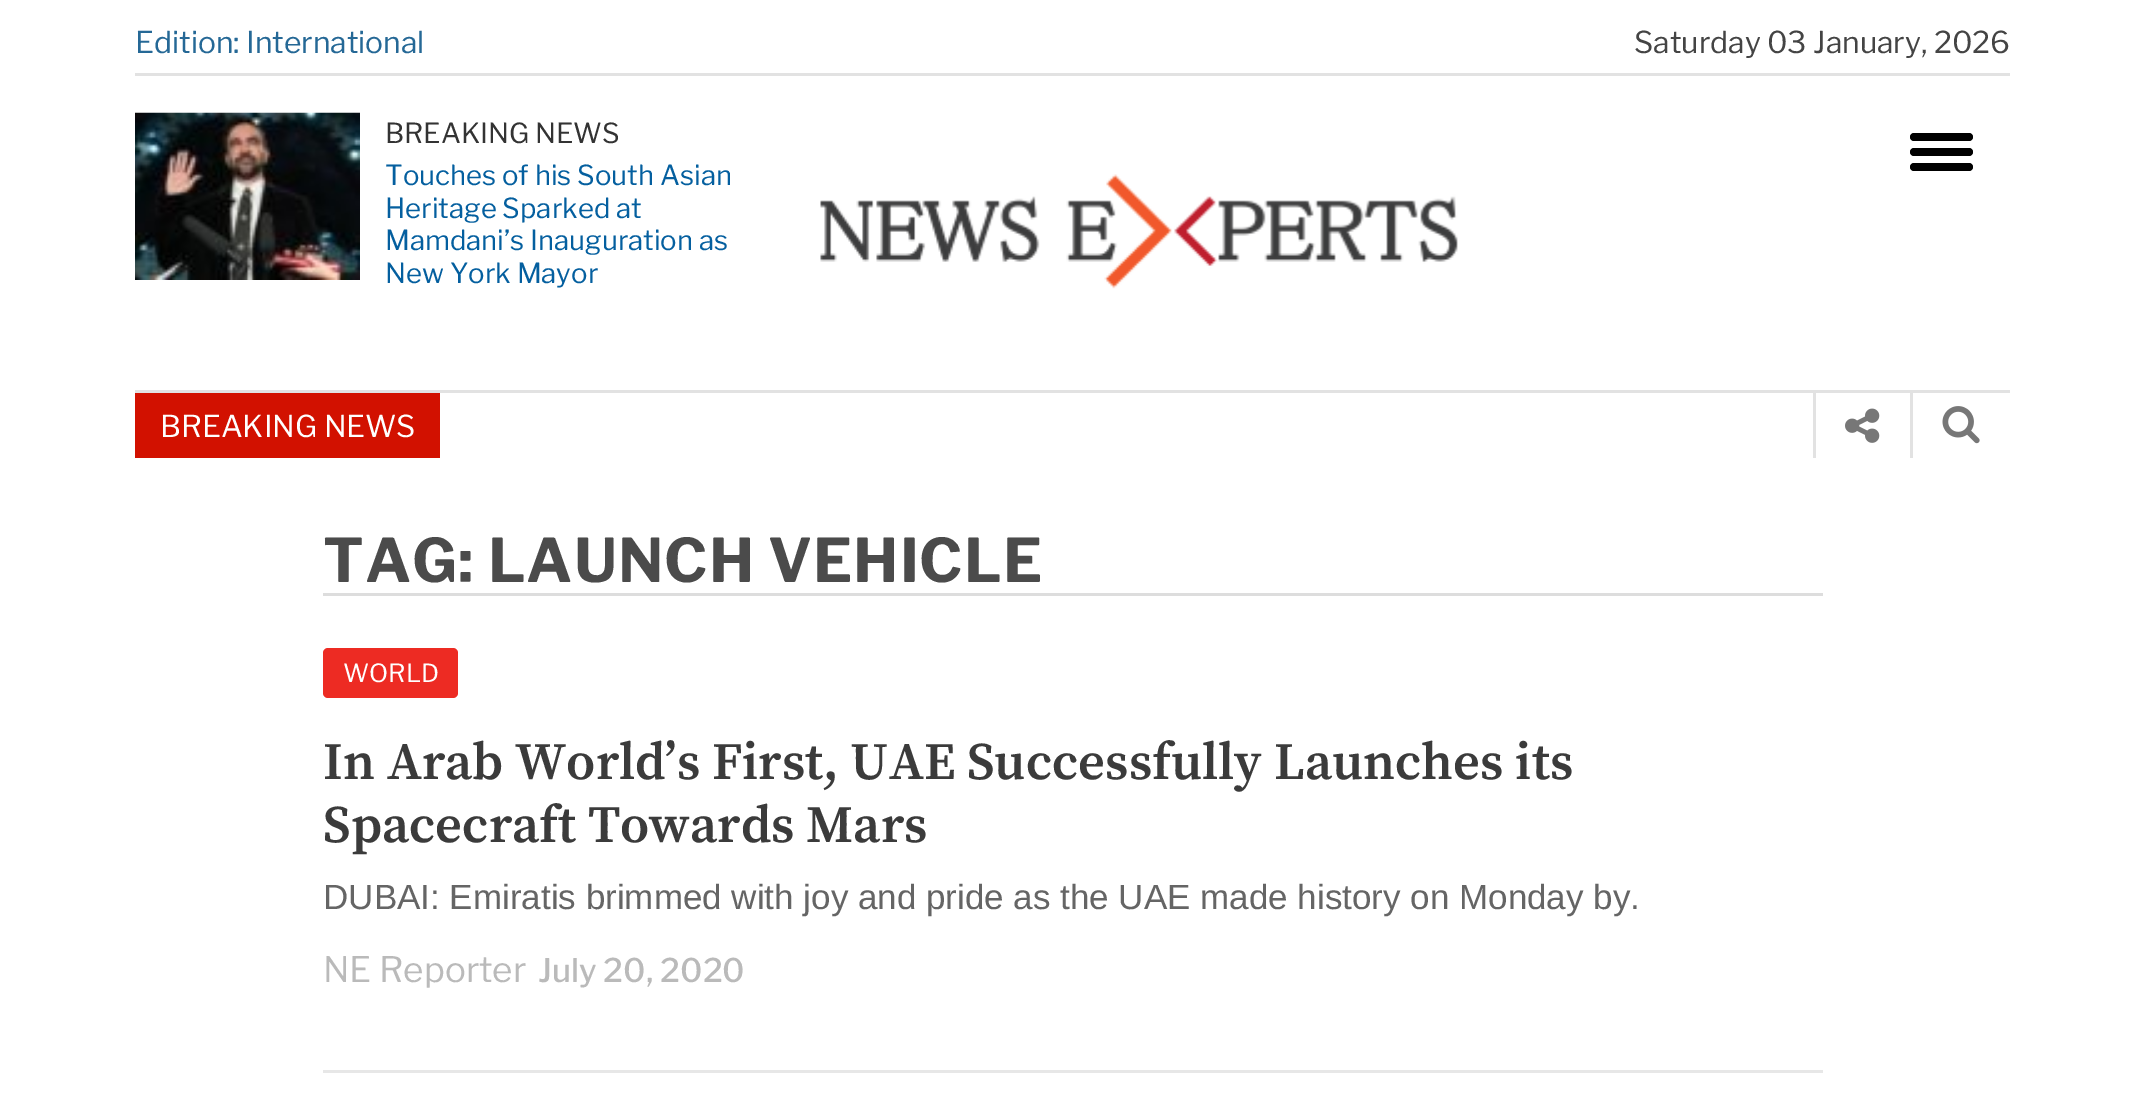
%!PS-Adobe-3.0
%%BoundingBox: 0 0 2145 1093
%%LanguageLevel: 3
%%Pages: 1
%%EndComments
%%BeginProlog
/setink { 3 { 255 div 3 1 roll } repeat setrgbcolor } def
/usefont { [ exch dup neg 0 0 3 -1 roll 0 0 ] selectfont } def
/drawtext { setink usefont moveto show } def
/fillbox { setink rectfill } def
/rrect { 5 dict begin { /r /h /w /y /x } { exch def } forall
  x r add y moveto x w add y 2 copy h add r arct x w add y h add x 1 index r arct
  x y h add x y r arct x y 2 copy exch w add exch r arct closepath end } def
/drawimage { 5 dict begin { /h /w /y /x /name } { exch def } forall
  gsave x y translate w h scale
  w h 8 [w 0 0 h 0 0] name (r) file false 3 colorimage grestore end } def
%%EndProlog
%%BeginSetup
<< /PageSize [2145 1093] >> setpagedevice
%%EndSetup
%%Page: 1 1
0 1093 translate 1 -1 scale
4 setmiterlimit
0 0 2145 1093 255 255 255 fillbox
135 73 1875 3 226 226 226 fillbox
(Edition: International) 135 53 /LibreFranklin-Regular 30 37 104 150 drawtext
(Saturday 03 January, 2026) 1634 53 /LibreFranklin-Regular 30 68 68 68 drawtext
(assets/img1.rgb) 135 112 225 168 drawimage
(BREAKING NEWS) 385 143 /LibreFranklin-Regular 27.5 51 51 51 drawtext
(Touches of his South Asian) 385 185 /LibreFranklin-Regular 27.5 4 95 159 drawtext
(Heritage Sparked at) 385 218 /LibreFranklin-Regular 27.5 4 95 159 drawtext
(Mamdani’s Inauguration as) 385 250 /LibreFranklin-Regular 27.5 4 95 159 drawtext
(New York Mayor) 385 283 /LibreFranklin-Regular 27.5 4 95 159 drawtext
(assets/img2.rgb) 820 174 638 115 drawimage
0 0 0 setink
1910 133 63 8 4 rrect fill
1910 148 63 8 4 rrect fill
1910 163 63 8 4 rrect fill
135 390 1875 3 226 226 226 fillbox
135 393 305 65 210 17 0 fillbox
(BREAKING NEWS) 160 437 /LibreFranklin-Regular 30 255 255 255 drawtext
1813 393 3 65 226 226 226 fillbox
(assets/img3.rgb) 1845 408 35 35 drawimage
1910 393 3 65 226 226 226 fillbox
(assets/img4.rgb) 1942 406 38 38 drawimage
323 593 1500 3 221 221 221 fillbox
/LibreFranklin-Bold 60 usefont
75 75 75 setink
323 582 moveto 1 0 (TAG: LAUNCH VEHICLE) ashow
323 1070 1500 3 231 231 231 fillbox
237 43 35 setink
323 648 135 50 5 rrect fill
(WORLD) 343 682 /LibreFranklin-Regular 25 255 255 255 drawtext
(In Arab World’s First, UAE Successfully Launches its) 323 779 /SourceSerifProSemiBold-SemiBold 52.5 59 59 59 drawtext
(Spacecraft Towards Mars) 323 842 /SourceSerifProSemiBold-SemiBold 52.5 59 59 59 drawtext
(DUBAI: Emiratis brimmed with joy and pride as the UAE made history on Monday by.) 323 909 /LiberationSans-Regular 35 101 101 101 drawtext
(NE Reporter) 323 982 /LibreFranklin-Regular 35 186 186 186 drawtext
(July 20, 2020) 538 982 /LibreFranklin-Medium 32.5 186 186 186 drawtext
showpage
%%EOF
